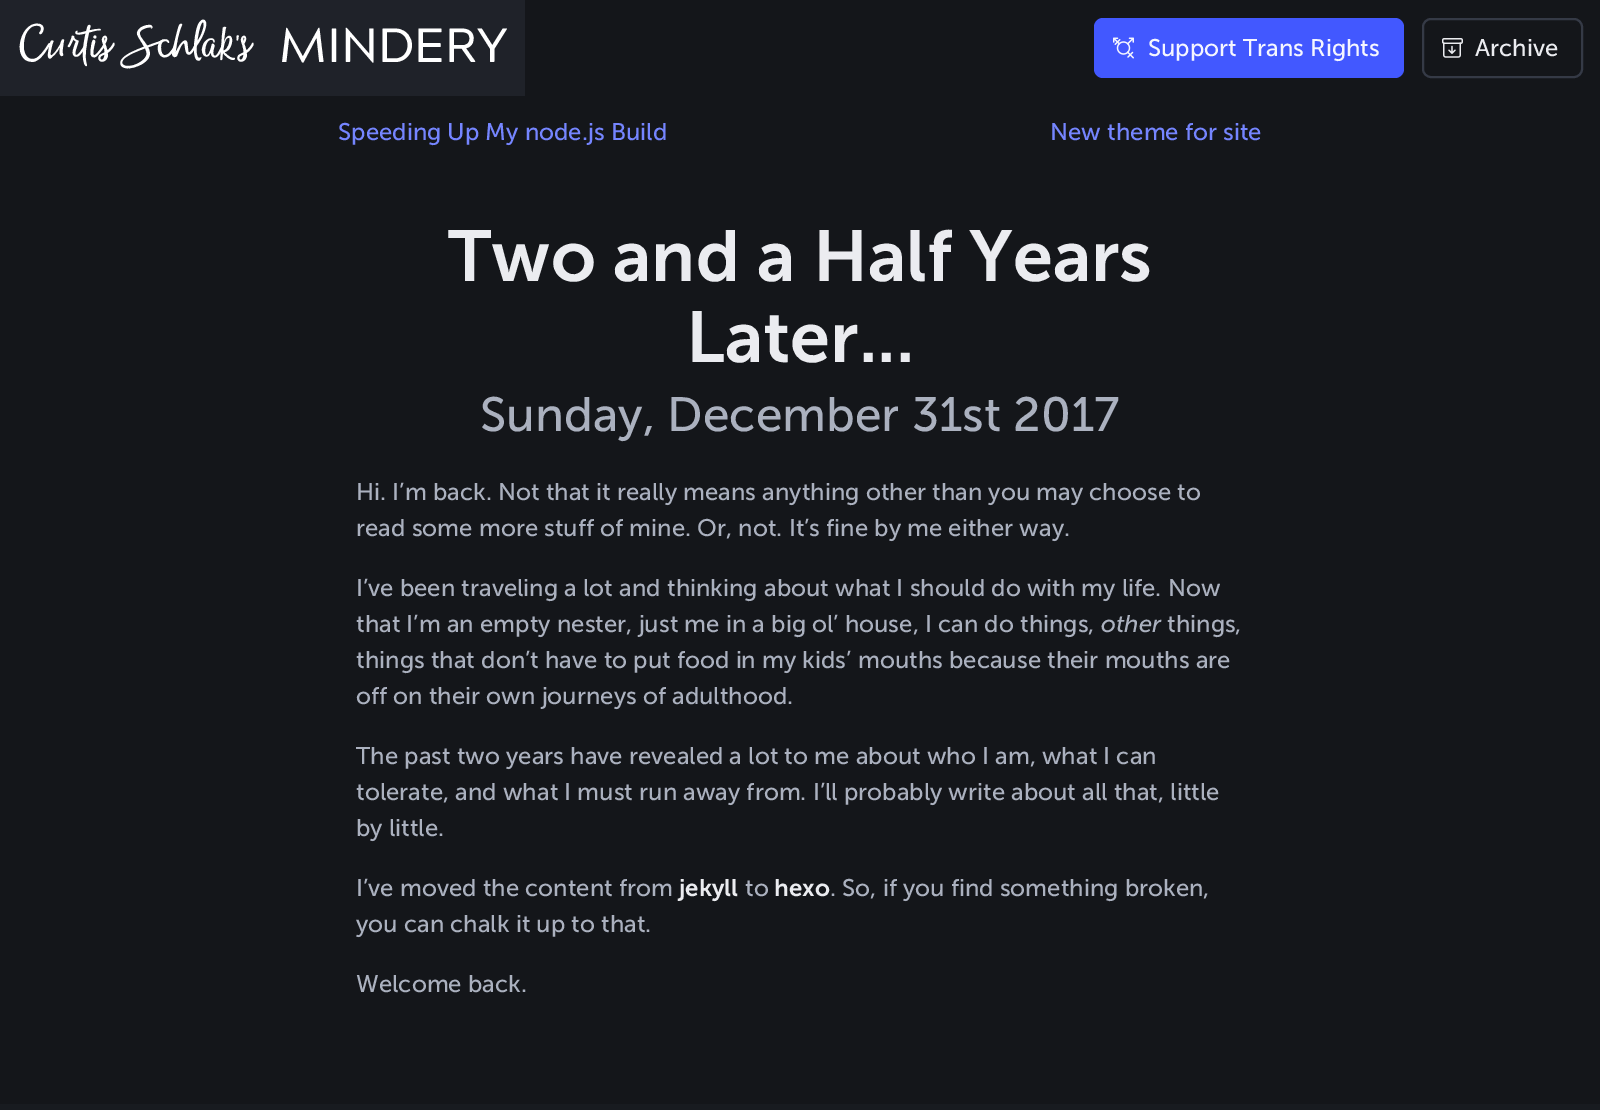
%!PS-Adobe-3.0
%%BoundingBox: 0 0 1600 1110
%%LanguageLevel: 3
%%Pages: 1
%%EndComments
%%BeginProlog
/setink { 3 { 255 div 3 1 roll } repeat setrgbcolor } def
/usefont { [ exch dup neg 0 0 3 -1 roll 0 0 ] selectfont } def
/drawtext { setink usefont moveto show } def
/fillbox { setink rectfill } def
/rrect { 5 dict begin { /r /h /w /y /x } { exch def } forall
  x r add y moveto x w add y 2 copy h add r arct x w add y h add x 1 index r arct
  x y h add x y r arct x y 2 copy exch w add exch r arct closepath end } def
/drawimage { 5 dict begin { /h /w /y /x /name } { exch def } forall
  gsave x y translate w h scale
  w h 8 [w 0 0 h 0 0] name (r) file false 3 colorimage grestore end } def
%%EndProlog
%%BeginSetup
<< /PageSize [1600 1110] >> setpagedevice
%%EndSetup
%%Page: 1 1
0 1110 translate 1 -1 scale
4 setmiterlimit
0 0 1600 1110 20 22 26 fillbox
0 0 525 96 31 34 41 fillbox
(Curtis Schlak's) 18 60 /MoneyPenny-Regular 48 255 255 255 drawtext
(MINDERY) 279 62 /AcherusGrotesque-Medium 48 255 255 255 drawtext
66 88 255 setink
1094 18 310 60 9 rrect fill
(assets/img1.rgb) 1113 37 21 22 drawimage
(Support Trans Rights) 1148 56 /MuseoSans-Regular 24 245 246 255 drawtext
53 58 70 setink
2 setlinewidth
1423 19 159 58 8 rrect stroke
(assets/img2.rgb) 1442 38 21 20 drawimage
(Archive) 1475 56 /MuseoSans-Regular 24 235 236 240 drawtext
(Speeding Up My node.js Build) 338 140 /MuseoSans-Regular 24 117 133 255 drawtext
(New theme for site) 1050 140 /MuseoSans-Regular 24 117 133 255 drawtext
(Two and a Half Years) 448 281 /MuseoSans-SemiBold 72 235 236 240 drawtext
(Later...) 686 362 /MuseoSans-SemiBold 72 235 236 240 drawtext
(Sunday, December 31st 2017) 480 431 /MuseoSans-Regular 48 171 177 191 drawtext
(Hi. I’m back. Not that it really means anything other than you may choose to) 356 500 /MuseoSans-Regular 24 171 177 191 drawtext
(read some more stuff of mine. Or, not. It’s fine by me either way.) 356 536 /MuseoSans-Regular 24 171 177 191 drawtext
(I’ve been traveling a lot and thinking about what I should do with my life. Now) 356 596 /MuseoSans-Regular 24 171 177 191 drawtext
(that I’m an empty nester, just me in a big ol’ house, I can do things,) 356 632 /MuseoSans-Regular 24 171 177 191 drawtext
(other) 1101 632 /MuseoSans-Italic 24 171 177 191 drawtext
(things,) 1167 632 /MuseoSans-Regular 24 171 177 191 drawtext
(things that don’t have to put food in my kids’ mouths because their mouths are) 356 668 /MuseoSans-Regular 24 171 177 191 drawtext
(off on their own journeys of adulthood.) 356 704 /MuseoSans-Regular 24 171 177 191 drawtext
(The past two years have revealed a lot to me about who I am, what I can) 356 764 /MuseoSans-Regular 24 171 177 191 drawtext
(tolerate, and what I must run away from. I’ll probably write about all that, little) 356 800 /MuseoSans-Regular 24 171 177 191 drawtext
(by little.) 356 836 /MuseoSans-Regular 24 171 177 191 drawtext
(I’ve moved the content from) 356 896 /MuseoSans-Regular 24 171 177 191 drawtext
(jekyll) 679 896 /MuseoSans-SemiBold 24 235 236 240 drawtext
(to) 745 896 /MuseoSans-Regular 24 171 177 191 drawtext
(hexo) 774 896 /MuseoSans-SemiBold 24 235 236 240 drawtext
(. So, if you find something broken,) 830 896 /MuseoSans-Regular 24 171 177 191 drawtext
(you can chalk it up to that.) 356 932 /MuseoSans-Regular 24 171 177 191 drawtext
(Welcome back.) 356 992 /MuseoSans-Regular 24 171 177 191 drawtext
0 1104 1600 6 24 27 32 fillbox
showpage
%%EOF
